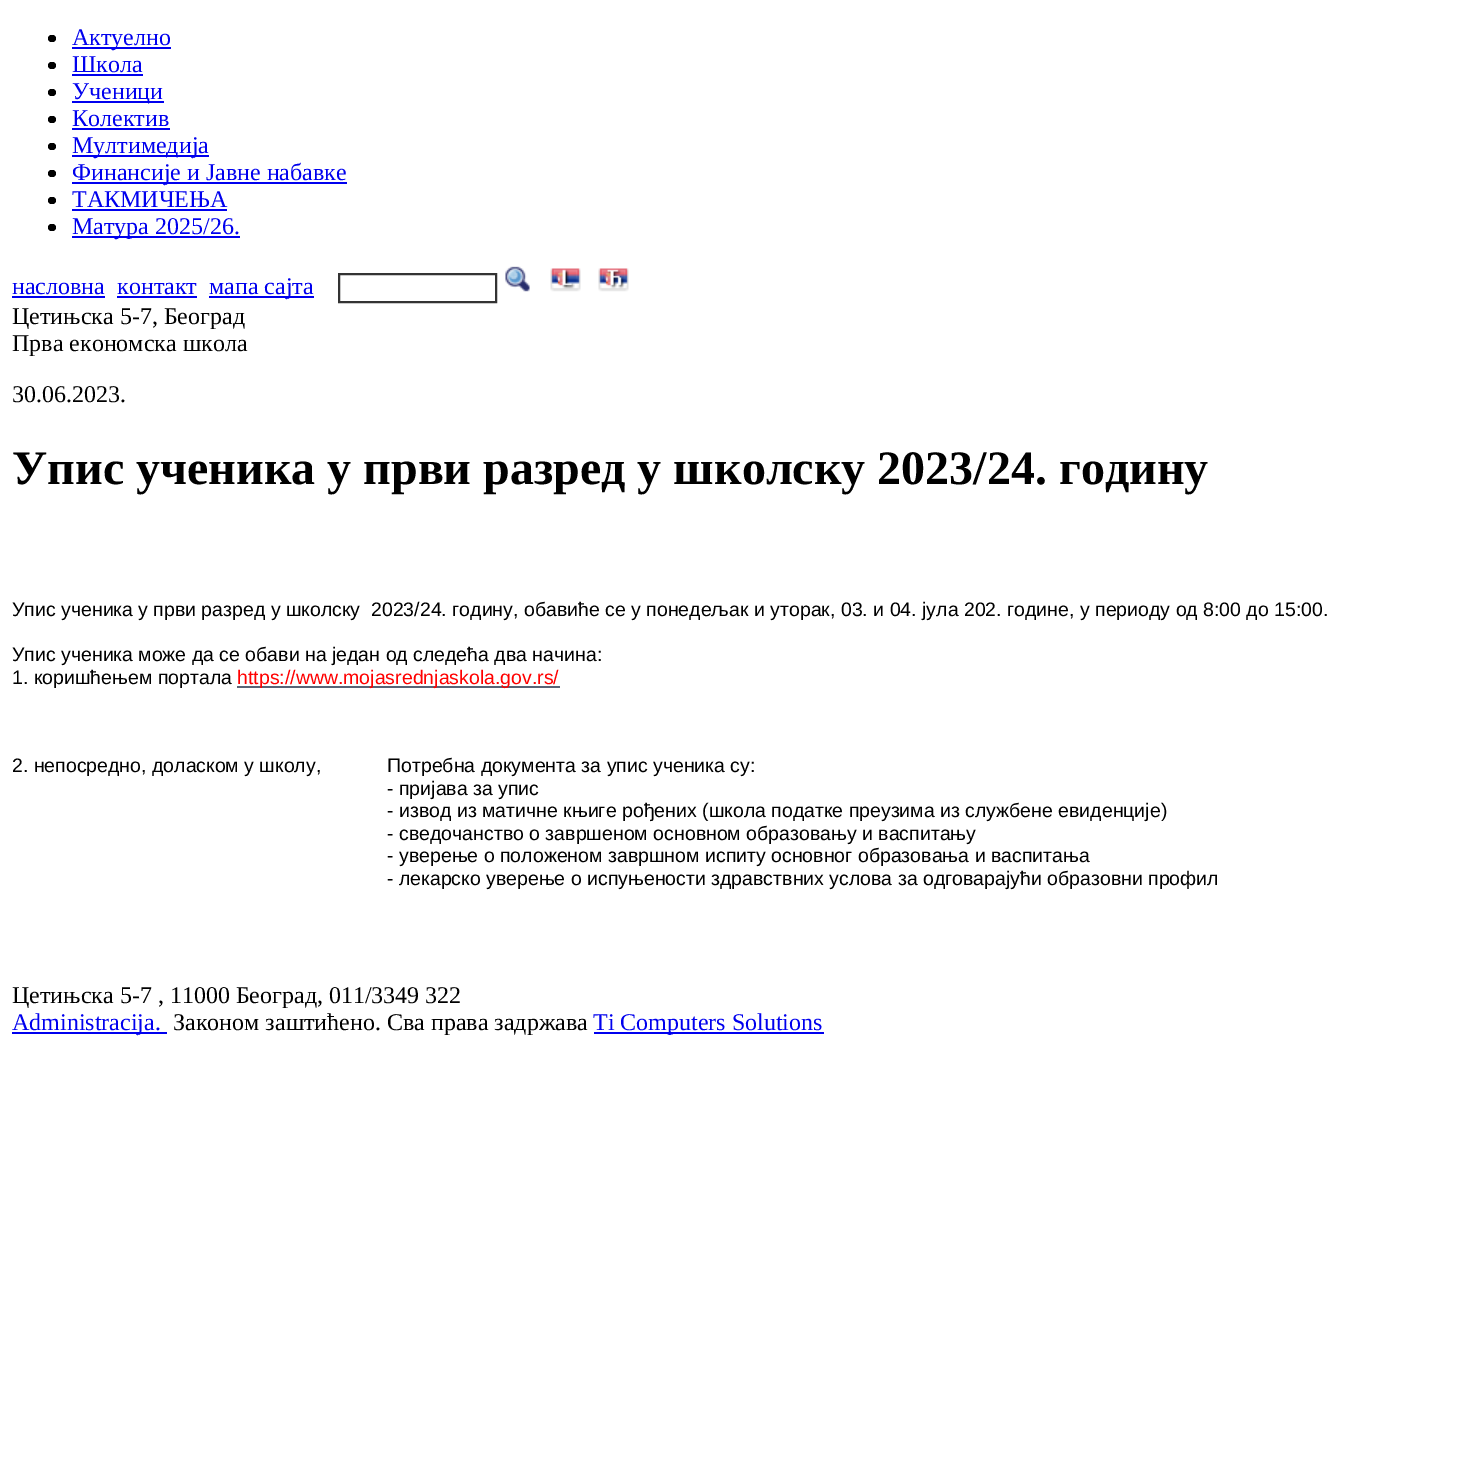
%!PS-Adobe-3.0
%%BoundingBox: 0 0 1459 1468
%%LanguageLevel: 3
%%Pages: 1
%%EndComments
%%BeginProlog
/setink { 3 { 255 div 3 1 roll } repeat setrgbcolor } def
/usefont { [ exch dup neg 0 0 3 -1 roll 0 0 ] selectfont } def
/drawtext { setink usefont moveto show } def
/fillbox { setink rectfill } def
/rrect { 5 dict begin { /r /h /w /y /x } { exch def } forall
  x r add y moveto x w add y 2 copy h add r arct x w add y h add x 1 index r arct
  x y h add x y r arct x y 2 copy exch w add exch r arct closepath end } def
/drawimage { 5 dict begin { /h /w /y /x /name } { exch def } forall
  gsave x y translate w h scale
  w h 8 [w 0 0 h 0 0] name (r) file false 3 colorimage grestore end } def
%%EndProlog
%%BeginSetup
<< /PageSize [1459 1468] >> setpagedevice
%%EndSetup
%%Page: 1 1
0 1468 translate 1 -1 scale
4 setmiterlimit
0 0 1459 1468 255 255 255 fillbox
0 0 0 setink
48 35 8 7 3.5 rrect fill
72 47 99 2 0 0 238 fillbox
(Актуелно) 72 45 /LiberationSerif-Regular 24 0 0 238 drawtext
0 0 0 setink
48 62 8 7 3.5 rrect fill
(Школа) 72 72 /LiberationSerif-Regular 24 0 0 238 drawtext
72 74 71 2 0 0 238 fillbox
0 0 0 setink
48 89 8 7 3.5 rrect fill
72 101 92 2 0 0 238 fillbox
(Ученици) 72 99 /LiberationSerif-Regular 24 0 0 238 drawtext
0 0 0 setink
48 116 8 7 3.5 rrect fill
(Колектив) 72 126 /LiberationSerif-Regular 24 0 0 238 drawtext
72 128 98 2 0 0 238 fillbox
0 0 0 setink
48 143 8 7 3.5 rrect fill
72 155 137 2 0 0 238 fillbox
(Мултимедија) 72 153 /LiberationSerif-Regular 24 0 0 238 drawtext
0 0 0 setink
48 170 8 7 3.5 rrect fill
72 182 275 2 0 0 238 fillbox
(Финансије и Јавне набавке) 72 180 /LiberationSerif-Regular 24 0 0 238 drawtext
0 0 0 setink
48 197 8 7 3.5 rrect fill
(ТАКМИЧЕЊА) 72 207 /LiberationSerif-Regular 24 0 0 238 drawtext
72 209 155 2 0 0 238 fillbox
0 0 0 setink
48 224 8 7 3.5 rrect fill
72 236 168 2 0 0 238 fillbox
(Матура 2025/26.) 72 234 /LiberationSerif-Regular 24 0 0 238 drawtext
(насловна) 12 294 /LiberationSerif-Regular 24 0 0 238 drawtext
12 296 93 2 0 0 238 fillbox
(контакт) 117 294 /LiberationSerif-Regular 24 0 0 238 drawtext
117 296 80 2 0 0 238 fillbox
209 296 105 2 0 0 238 fillbox
(мапа сајта) 209 294 /LiberationSerif-Regular 24 0 0 238 drawtext
51 51 51 setink
2 setlinewidth
339 274 157 28 rectstroke
(assets/img1.rgb) 505 266 25 26 drawimage
(assets/img2.rgb) 550 268 31 24 drawimage
(assets/img3.rgb) 598 268 31 24 drawimage
(Цетињска 5-7, Београд) 12 324 /LiberationSerif-Regular 24 0 0 0 drawtext
(Прва економска школа) 12 351 /LiberationSerif-Regular 24 0 0 0 drawtext
(30.06.2023.) 12 402 /LiberationSerif-Regular 24 0 0 0 drawtext
(Упис ученика у први разред у школску 2023/24. годину) 12 484 /LiberationSerif-Bold 48 0 0 0 drawtext
(Упис ученика у први разред у школску  2023/24. годину, обавиће се у понедељак и уторак, 03. и 04. јула 202. године, у периоду од 8:00 до 15:00.) 12 616 /LiberationSans-Regular 19.5 0 0 0 drawtext
(Упис ученика може да се обави на један од следећа два начина:) 12 661 /LiberationSans-Regular 19.5 0 0 0 drawtext
(1. коришћењем портала) 12 684 /LiberationSans-Regular 19.5 0 0 0 drawtext
237 686 323 2 88 99 117 fillbox
(https://www.mojasrednjaskola.gov.rs/) 237 684 /LiberationSans-Regular 19.5 255 0 0 drawtext
(2. непосредно, доласком у школу,) 12 772 /LiberationSans-Regular 19.5 0 0 0 drawtext
(Потребна документа за упис ученика су:) 387 772 /LiberationSans-Regular 19.5 0 0 0 drawtext
(- пријава за упис) 387 795 /LiberationSans-Regular 19.5 0 0 0 drawtext
(- извод из матичне књиге рођених \(школа податке преузима из службене евиденције\)) 387 817 /LiberationSans-Regular 19.5 0 0 0 drawtext
(- сведочанство о завршеном основном образовању и васпитању) 387 840 /LiberationSans-Regular 19.5 0 0 0 drawtext
(- уверење о положеном завршном испиту основног образовања и васпитања) 387 862 /LiberationSans-Regular 19.5 0 0 0 drawtext
(- лекарско уверење о испуњености здравствних услова за одговарајући образовни профил) 387 885 /LiberationSans-Regular 19.5 0 0 0 drawtext
(Цетињска 5-7 , 11000 Београд, 011/3349 322) 12 1003 /LiberationSerif-Regular 24 0 0 0 drawtext
12 1032 155 2 0 0 238 fillbox
(Administracija.) 12 1030 /LiberationSerif-Regular 24 0 0 238 drawtext
(Законом заштићено. Сва права задржава) 173 1030 /LiberationSerif-Regular 24 0 0 0 drawtext
594 1032 230 2 0 0 238 fillbox
(Ti Computers Solutions) 593 1030 /LiberationSerif-Regular 24 0 0 238 drawtext
showpage
%%EOF
